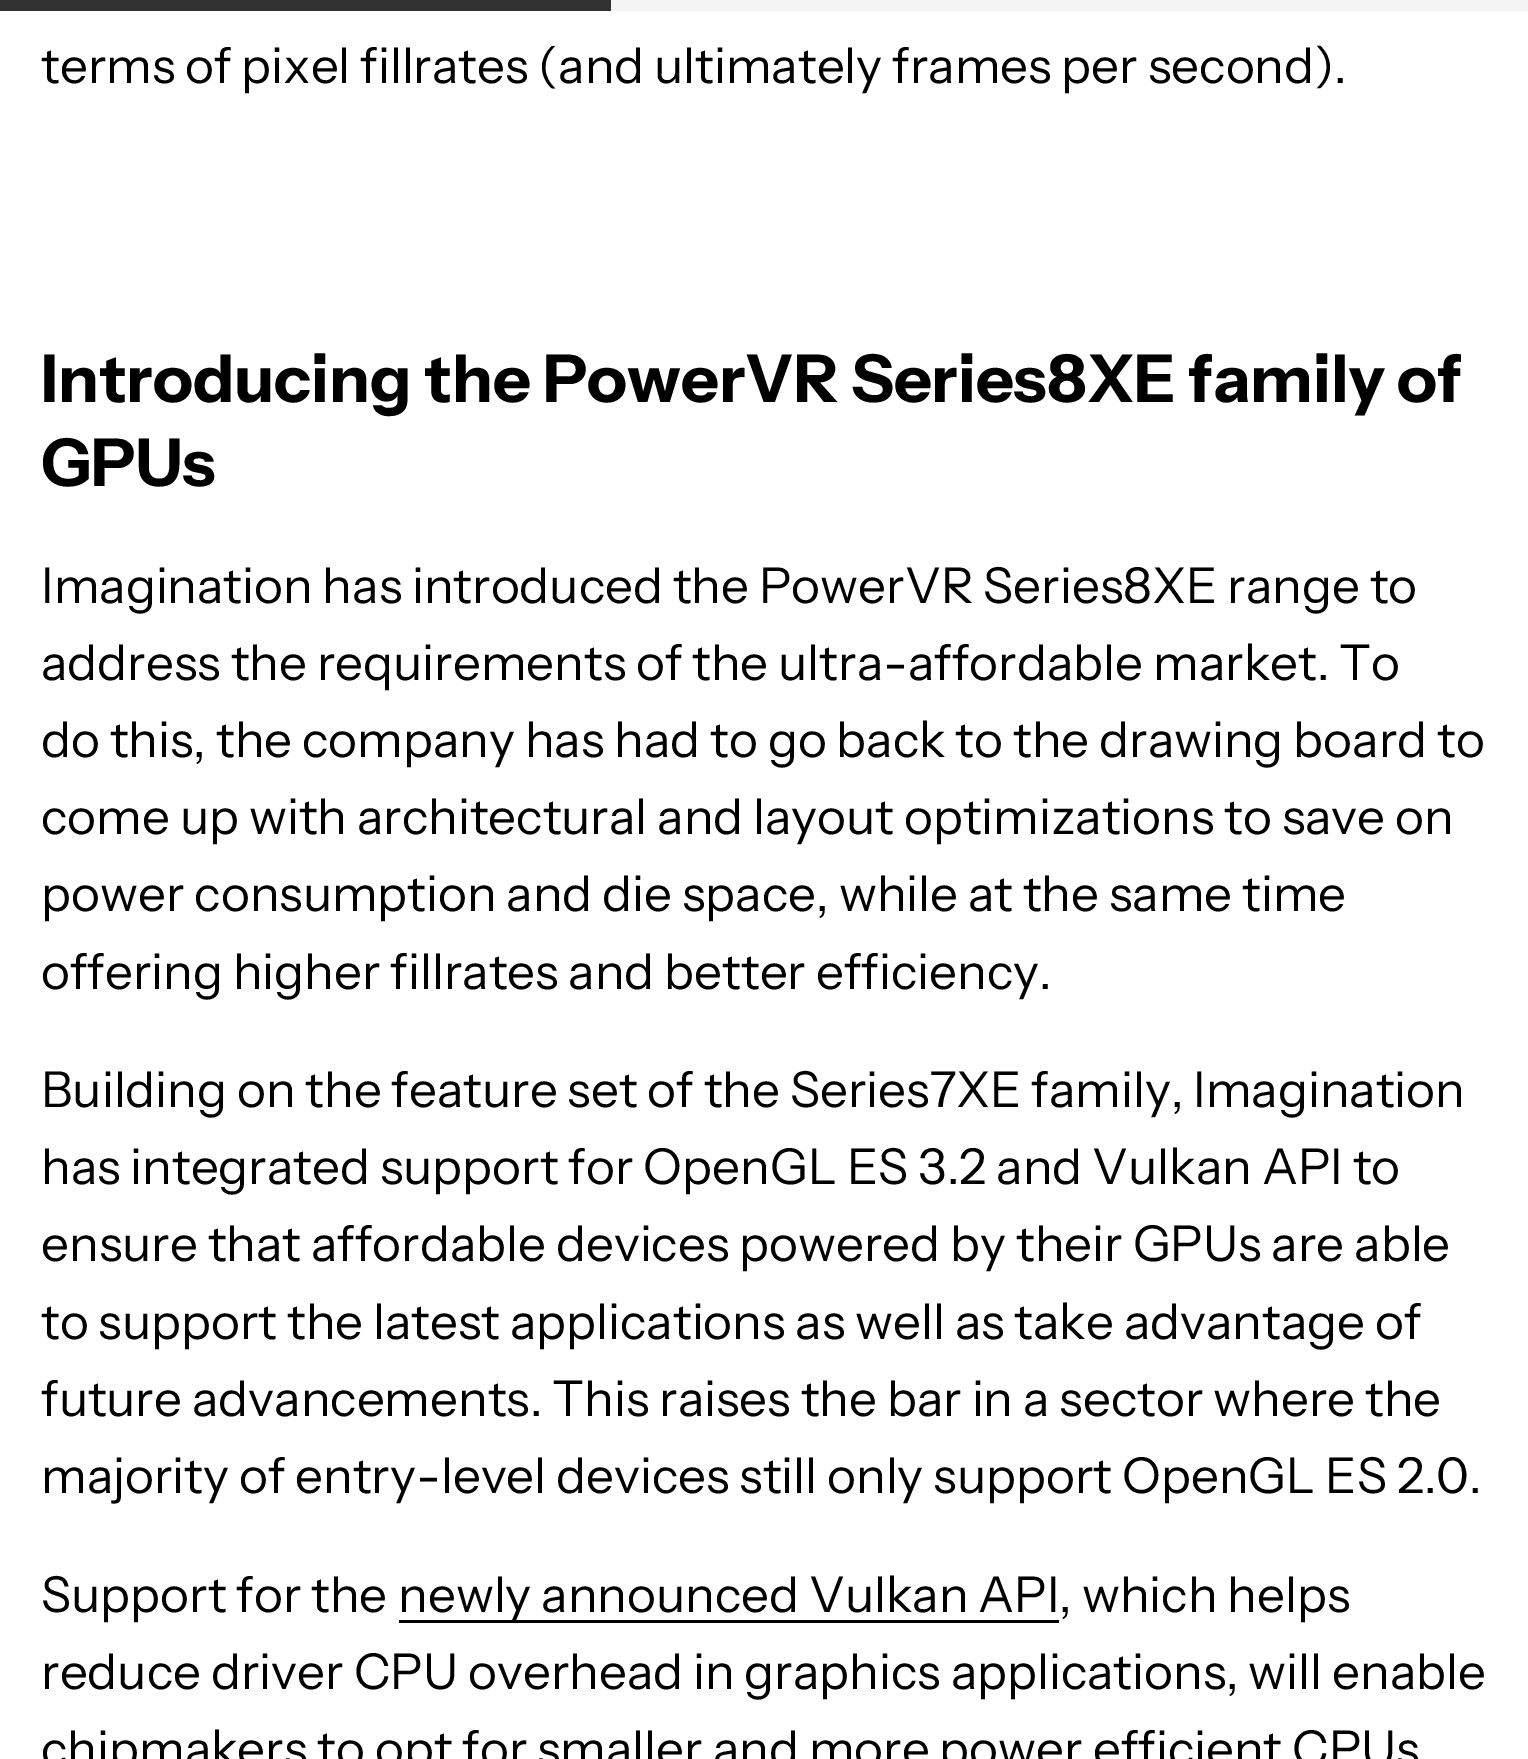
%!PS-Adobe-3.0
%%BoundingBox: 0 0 1528 1759
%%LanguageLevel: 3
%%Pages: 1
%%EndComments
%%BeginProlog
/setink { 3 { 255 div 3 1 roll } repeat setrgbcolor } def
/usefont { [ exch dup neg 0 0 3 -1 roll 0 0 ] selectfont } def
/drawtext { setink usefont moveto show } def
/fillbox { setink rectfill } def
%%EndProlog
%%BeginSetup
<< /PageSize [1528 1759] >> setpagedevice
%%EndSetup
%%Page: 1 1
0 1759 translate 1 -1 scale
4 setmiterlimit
0 0 1528 1759 255 255 255 fillbox
611 0 917 11 244 244 244 fillbox
0 0 611 11 49 49 49 fillbox
(terms of pixel fillrates \(and ultimately frames per second\).) 41 83 /InstrumentSans-Regular 49.5 0 0 0 drawtext
(Introducing the PowerVR Series8XE family of) 41 402 /InstrumentSans-Bold 66 0 0 0 drawtext
(GPUs) 41 486 /InstrumentSans-Bold 66 0 0 0 drawtext
(Imagination has introduced the PowerVR Series8XE range to) 41 603 /InstrumentSans-Regular 49.5 0 0 0 drawtext
(address the requirements of the ultra-affordable market. To) 41 680 /InstrumentSans-Regular 49.5 0 0 0 drawtext
(do this, the company has had to go back to the drawing board to) 41 757 /InstrumentSans-Regular 49.5 0 0 0 drawtext
(come up with architectural and layout optimizations to save on) 41 834 /InstrumentSans-Regular 49.5 0 0 0 drawtext
(power consumption and die space, while at the same time) 41 911 /InstrumentSans-Regular 49.5 0 0 0 drawtext
(offering higher fillrates and better efficiency.) 41 989 /InstrumentSans-Regular 49.5 0 0 0 drawtext
(Building on the feature set of the Series7XE family, Imagination) 41 1107 /InstrumentSans-Regular 49.5 0 0 0 drawtext
(has integrated support for OpenGL ES 3.2 and Vulkan API to) 41 1184 /InstrumentSans-Regular 49.5 0 0 0 drawtext
(ensure that affordable devices powered by their GPUs are able) 41 1261 /InstrumentSans-Regular 49.5 0 0 0 drawtext
(to support the latest applications as well as take advantage of) 41 1339 /InstrumentSans-Regular 49.5 0 0 0 drawtext
(future advancements. This raises the bar in a sector where the) 41 1416 /InstrumentSans-Regular 49.5 0 0 0 drawtext
(majority of entry-level devices still only support OpenGL ES 2.0.) 41 1493 /InstrumentSans-Regular 49.5 0 0 0 drawtext
(Support for the) 41 1612 /InstrumentSans-Regular 49.5 0 0 0 drawtext
399 1620 660 3 0 0 0 fillbox
(newly announced Vulkan API, which helps) 398 1612 /InstrumentSans-Regular 49.5 0 0 0 drawtext
(reduce driver CPU overhead in graphics applications, will enable) 41 1689 /InstrumentSans-Regular 49.5 0 0 0 drawtext
(chipmakers to opt for smaller and more power efficient CPUs) 41 1766 /InstrumentSans-Regular 49.5 0 0 0 drawtext
showpage
%%EOF
